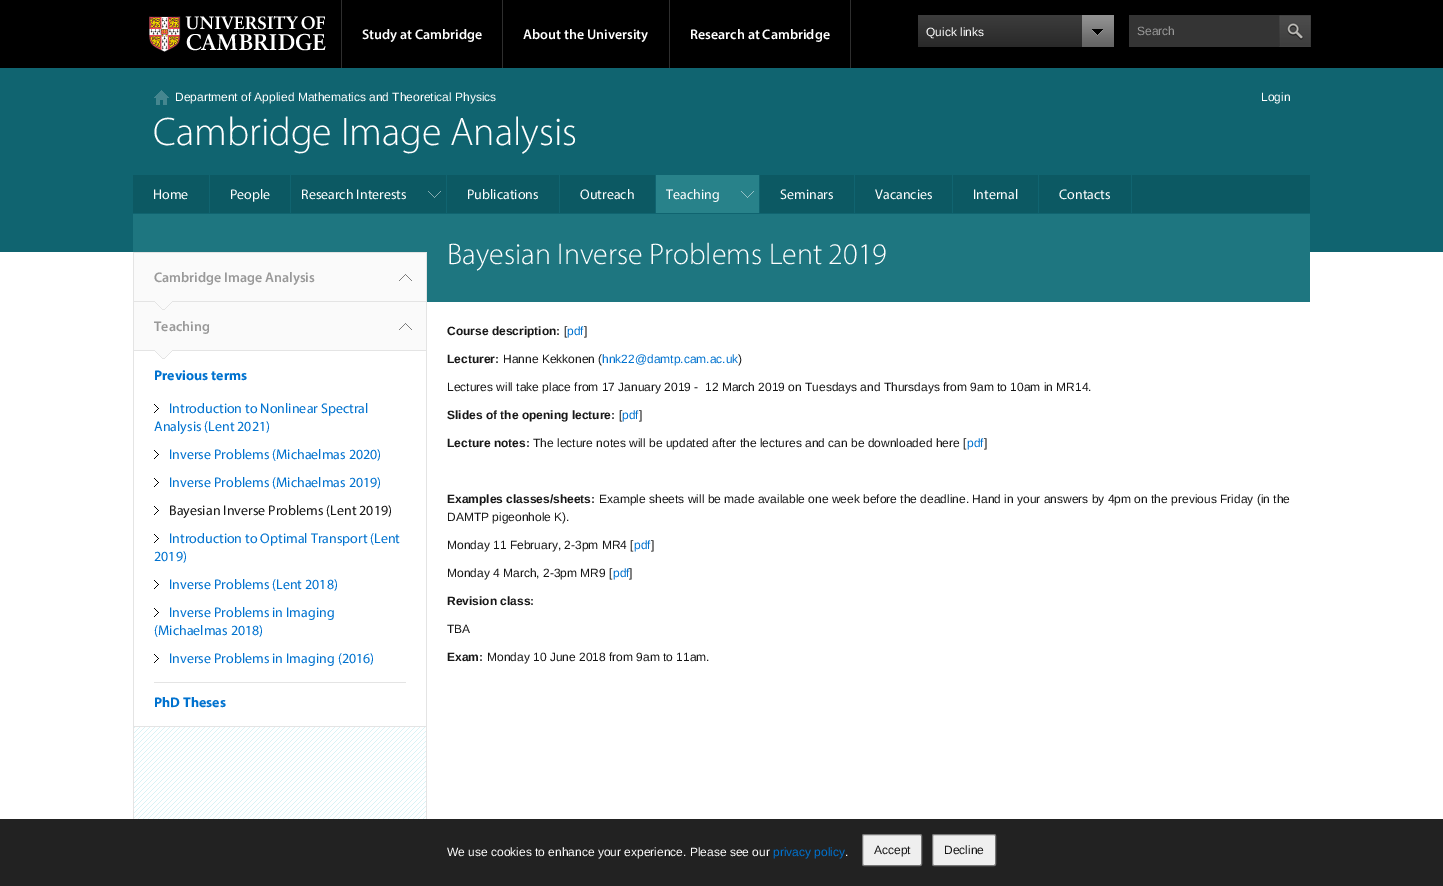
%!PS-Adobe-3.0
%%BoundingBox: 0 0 1443 886
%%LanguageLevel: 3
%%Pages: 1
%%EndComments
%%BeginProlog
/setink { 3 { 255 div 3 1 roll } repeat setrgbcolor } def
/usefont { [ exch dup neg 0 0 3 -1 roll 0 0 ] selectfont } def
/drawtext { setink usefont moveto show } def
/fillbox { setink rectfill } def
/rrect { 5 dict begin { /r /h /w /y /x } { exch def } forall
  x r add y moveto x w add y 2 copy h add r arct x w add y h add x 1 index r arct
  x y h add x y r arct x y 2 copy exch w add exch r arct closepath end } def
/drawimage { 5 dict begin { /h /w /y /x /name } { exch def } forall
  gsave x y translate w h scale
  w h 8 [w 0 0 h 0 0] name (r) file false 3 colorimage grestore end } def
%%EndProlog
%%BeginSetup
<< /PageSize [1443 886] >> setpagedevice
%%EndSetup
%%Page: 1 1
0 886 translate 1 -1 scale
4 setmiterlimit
0 0 1443 886 0 0 0 fillbox
(assets/img1.rgb) 149 16 177 36 drawimage
341 0 1 68 46 46 46 fillbox
502 0 1 68 46 46 46 fillbox
(Study at Cambridge) 362 39 /Myriad-SemiBold 14 255 255 255 drawtext
669 0 1 68 46 46 46 fillbox
(About the University) 523 39 /Myriad-SemiBold 14 255 255 255 drawtext
850 0 1 68 46 46 46 fillbox
(Research at Cambridge) 690 39 /Myriad-SemiBold 14 255 255 255 drawtext
gsave 918 15 moveto 1082 15 lineto 1082 47 lineto 918 47 lineto closepath clip newpath
<< /ShadingType 2 /ColorSpace /DeviceRGB /Coords [1016 15 1016 47] /Extend [true true] /Function << /FunctionType 2 /Domain [0 1] /C0 [0.239 0.239 0.239] /C1 [0.161 0.161 0.161] /N 1 >> >> shfill grestore
(Quick links) 926 36 /LiberationSans-Regular 12 255 255 255 drawtext
(assets/img2.rgb) 1082 15 32 32 drawimage
1129 15 150 32 52 52 52 fillbox
(Search) 1137 35 /LiberationSans-Regular 12 153 153 153 drawtext
(assets/img3.rgb) 1279 15 32 32 drawimage
0 68 1443 184 16 100 112 fillbox
(assets/img4.rgb) 154 90 15 15 drawimage
(Department of Applied Mathematics and Theoretical Physics) 175 101 /LiberationSans-Regular 12 255 255 255 drawtext
(Login) 1261 101 /LiberationSans-Regular 12 255 255 255 drawtext
(Cambridge Image Analysis) 153 145 /Myriad-Light 40 255 255 255 drawtext
1132 175 178 38 12 89 99 fillbox
133 175 76 38 12 89 99 fillbox
(Home) 153 199 /Myriad-Regular 14 255 255 255 drawtext
210 175 80 38 12 89 99 fillbox
(People) 230 199 /Myriad-Regular 14 255 255 255 drawtext
291 175 155 38 12 89 99 fillbox
(assets/img5.rgb) 428 191 13 7 drawimage
(Research Interests) 301 199 /Myriad-Regular 14 255 255 255 drawtext
447 175 112 38 12 89 99 fillbox
(Publications) 467 199 /Myriad-Regular 14 255 255 255 drawtext
560 175 95 38 12 89 99 fillbox
(Outreach) 580 199 /Myriad-Regular 14 255 255 255 drawtext
656 175 103 38 40 130 138 fillbox
(assets/img6.rgb) 741 191 13 7 drawimage
(Teaching) 666 199 /Myriad-Regular 14 255 255 255 drawtext
760 175 94 38 12 89 99 fillbox
(Seminars) 780 199 /Myriad-Regular 14 255 255 255 drawtext
855 175 97 38 12 89 99 fillbox
(Vacancies) 875 199 /Myriad-Regular 14 255 255 255 drawtext
953 175 85 38 12 89 99 fillbox
(Internal) 973 199 /Myriad-Regular 14 255 255 255 drawtext
1039 175 92 38 12 89 99 fillbox
(Contacts) 1059 199 /Myriad-Regular 14 255 255 255 drawtext
0 252 1443 567 255 255 255 fillbox
133 214 1177 88 30 118 128 fillbox
(Bayesian Inverse Problems Lent 2019) 447 264 /Myriad-Light 30 255 255 255 drawtext
(assets/img7.rgb) 134 727 292 92 drawimage
133 252 294 1 228 228 228 fillbox
426 252 1 567 228 228 228 fillbox
133 252 1 567 228 228 228 fillbox
134 726 292 1 228 228 228 fillbox
134 253 292 48 250 250 250 fillbox
(assets/img8.rgb) 399 274 13 7 drawimage
134 301 292 1 228 228 228 fillbox
(Cambridge Image Analysis) 154 282 /Myriad-SemiBold 14 153 153 153 drawtext
134 302 292 48 250 250 250 fillbox
(assets/img9.rgb) 155 301 17 9 drawimage
(assets/img8.rgb) 399 323 13 7 drawimage
134 350 292 1 228 228 228 fillbox
(Teaching) 154 331 /Myriad-SemiBold 14 153 153 153 drawtext
(assets/img10.rgb) 155 350 17 9 drawimage
154 682 252 1 228 228 228 fillbox
(Previous terms) 154 380 /Myriad-Bold 14 0 114 207 drawtext
(assets/img11.rgb) 154 404 5 9 drawimage
(Introduction to Nonlinear Spectral) 169 413 /Myriad-Regular 14 0 114 207 drawtext
(Analysis \(Lent 2021\)) 154 431 /Myriad-Regular 14 0 114 207 drawtext
(assets/img11.rgb) 154 450 5 9 drawimage
(Inverse Problems \(Michaelmas 2020\)) 169 459 /Myriad-Regular 14 0 114 207 drawtext
(assets/img11.rgb) 154 478 5 9 drawimage
(Inverse Problems \(Michaelmas 2019\)) 169 487 /Myriad-Regular 14 0 114 207 drawtext
(assets/img11.rgb) 154 506 5 9 drawimage
(Bayesian Inverse Problems \(Lent 2019\)) 169 515 /Myriad-Regular 14 23 23 23 drawtext
(assets/img11.rgb) 154 534 5 9 drawimage
(Introduction to Optimal Transport \(Lent) 169 543 /Myriad-Regular 14 0 114 207 drawtext
(2019\)) 154 561 /Myriad-Regular 14 0 114 207 drawtext
(assets/img11.rgb) 154 580 5 9 drawimage
(Inverse Problems \(Lent 2018\)) 169 589 /Myriad-Regular 14 0 114 207 drawtext
(assets/img11.rgb) 154 608 5 9 drawimage
(Inverse Problems in Imaging) 169 617 /Myriad-Regular 14 0 114 207 drawtext
(\(Michaelmas 2018\)) 154 635 /Myriad-Regular 14 0 114 207 drawtext
(assets/img11.rgb) 154 654 5 9 drawimage
(Inverse Problems in Imaging \(2016\)) 169 663 /Myriad-Regular 14 0 114 207 drawtext
(PhD Theses) 154 707 /Myriad-Bold 14 0 114 207 drawtext
(Course description:) 447 335 /LiberationSans-Bold 12 23 23 23 drawtext
([) 564 335 /LiberationSans-Regular 12 23 23 23 drawtext
(pdf) 567 335 /LiberationSans-Regular 12 0 114 207 drawtext
(]) 584 335 /LiberationSans-Regular 12 23 23 23 drawtext
(Lecturer:) 447 363 /LiberationSans-Bold 12 23 23 23 drawtext
(Hanne Kekkonen \() 503 363 /LiberationSans-Regular 12 23 23 23 drawtext
(hnk22@damtp.cam.ac.uk) 602 363 /LiberationSans-Regular 12 0 114 207 drawtext
(\)) 738 363 /LiberationSans-Regular 12 23 23 23 drawtext
(Lectures will take place from 17 January 2019 -  12 March 2019 on Tuesdays and Thursdays from 9am to 10am in MR14.) 447 391 /LiberationSans-Regular 12 23 23 23 drawtext
(Slides of the opening lecture:) 447 419 /LiberationSans-Bold 12 23 23 23 drawtext
([) 619 419 /LiberationSans-Regular 12 23 23 23 drawtext
(pdf) 622 419 /LiberationSans-Regular 12 0 114 207 drawtext
(]) 639 419 /LiberationSans-Regular 12 23 23 23 drawtext
(Lecture notes:) 447 447 /LiberationSans-Bold 12 23 23 23 drawtext
(The lecture notes will be updated after the lectures and can be downloaded here [) 533 447 /LiberationSans-Regular 12 23 23 23 drawtext
(pdf) 967 447 /LiberationSans-Regular 12 0 114 207 drawtext
(]) 984 447 /LiberationSans-Regular 12 23 23 23 drawtext
(Examples classes/sheets:) 447 503 /LiberationSans-Bold 12 23 23 23 drawtext
(Example sheets will be made available one week before the deadline. Hand in your answers by 4pm on the previous Friday \(in the) 599 503 /LiberationSans-Regular 12 23 23 23 drawtext
(DAMTP pigeonhole K\).) 447 521 /LiberationSans-Regular 12 23 23 23 drawtext
(Monday 11 February, 2-3pm MR4 [) 447 549 /LiberationSans-Regular 12 23 23 23 drawtext
(pdf) 634 549 /LiberationSans-Regular 12 0 114 207 drawtext
(]) 651 549 /LiberationSans-Regular 12 23 23 23 drawtext
(Monday 4 March, 2-3pm MR9 [) 447 577 /LiberationSans-Regular 12 23 23 23 drawtext
(pdf) 613 577 /LiberationSans-Regular 12 0 114 207 drawtext
(]) 629 577 /LiberationSans-Regular 12 23 23 23 drawtext
(Revision class:) 447 605 /LiberationSans-Bold 12 23 23 23 drawtext
(TBA) 447 633 /LiberationSans-Regular 12 23 23 23 drawtext
(Exam:) 447 661 /LiberationSans-Bold 12 23 23 23 drawtext
(Monday 10 June 2018 from 9am to 11am.) 487 661 /LiberationSans-Regular 12 23 23 23 drawtext
0 819 1443 67 34 34 34 fillbox
(We use cookies to enhance your experience. Please see our) 447 856 /LiberationSans-Regular 12 255 255 255 drawtext
(privacy policy) 773 856 /LiberationSans-Regular 12 0 114 207 drawtext
(.) 845 856 /LiberationSans-Regular 12 255 255 255 drawtext
239 239 239 setink
862.5 834.5 59 31 1.5 rrect gsave fill grestore
118 118 118 setink
stroke
(Accept) 874 854 /LiberationSans-Regular 12 23 23 23 drawtext
239 239 239 setink
932.5 834.5 63 31 1.5 rrect gsave fill grestore
118 118 118 setink
stroke
(Decline) 944 854 /LiberationSans-Regular 12 23 23 23 drawtext
showpage
%%EOF
